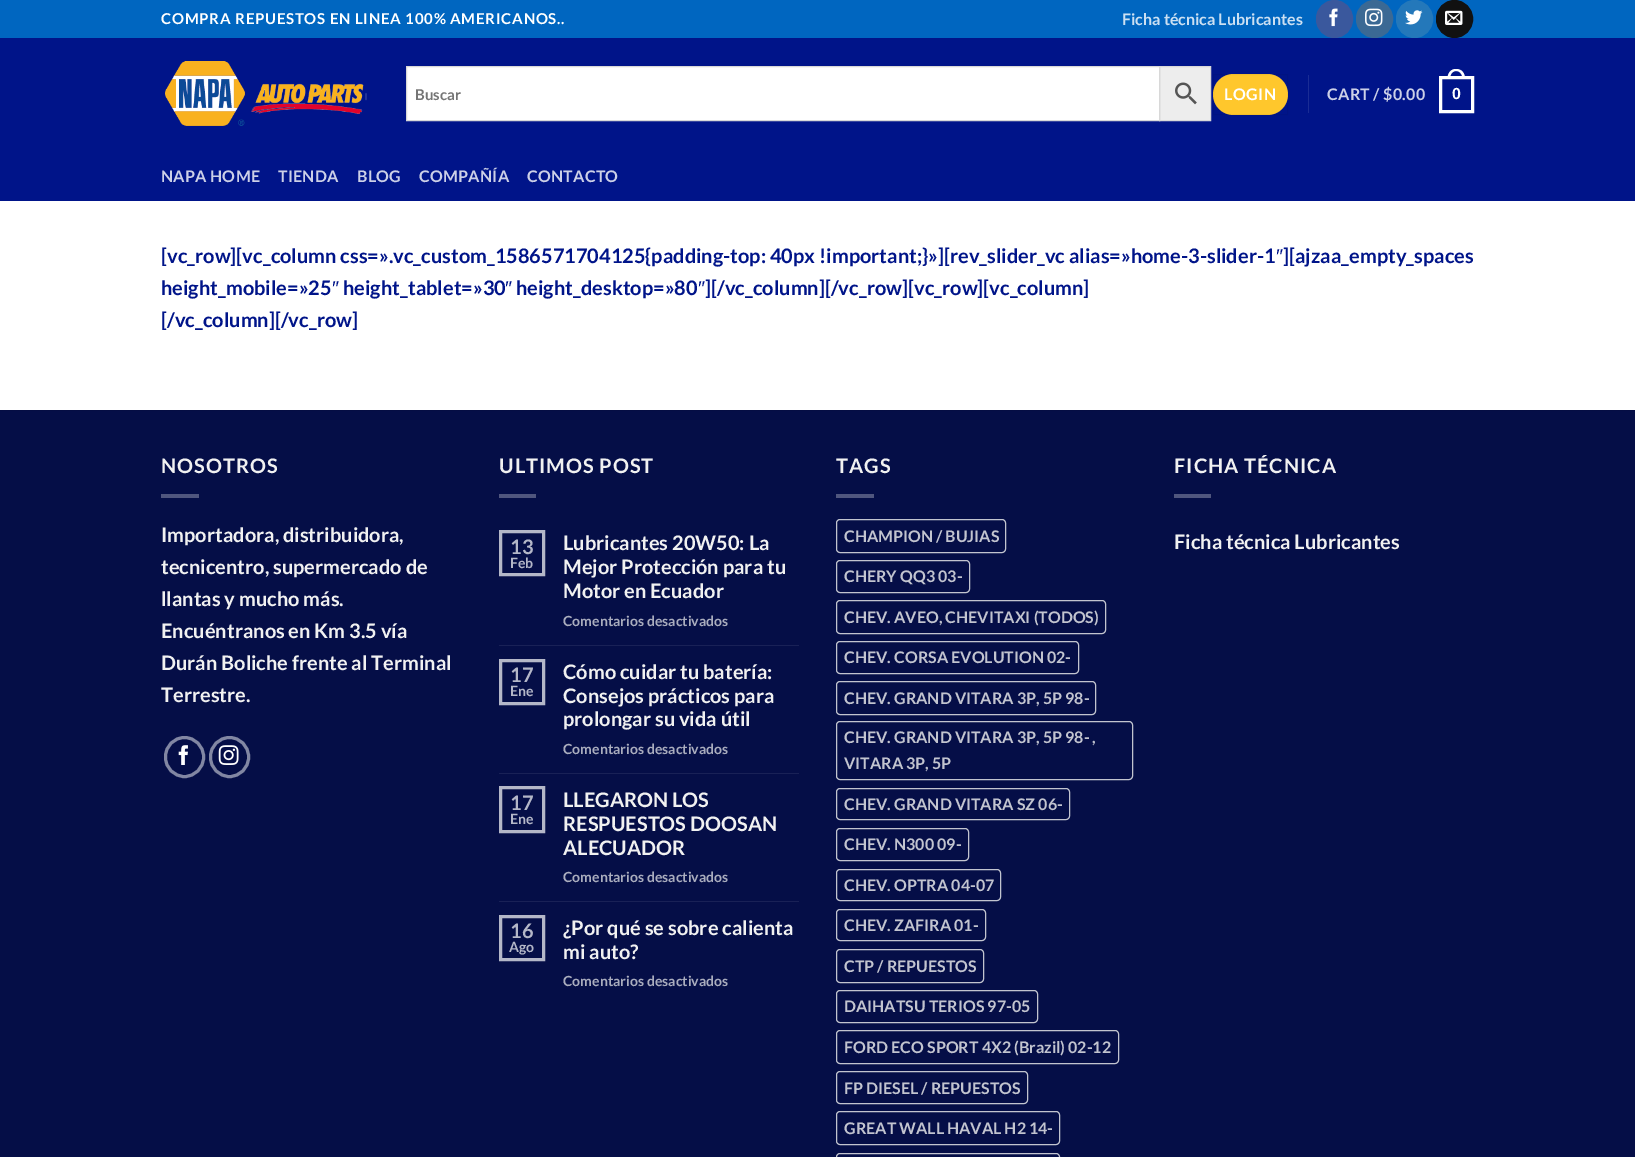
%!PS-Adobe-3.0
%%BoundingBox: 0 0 1635 1157
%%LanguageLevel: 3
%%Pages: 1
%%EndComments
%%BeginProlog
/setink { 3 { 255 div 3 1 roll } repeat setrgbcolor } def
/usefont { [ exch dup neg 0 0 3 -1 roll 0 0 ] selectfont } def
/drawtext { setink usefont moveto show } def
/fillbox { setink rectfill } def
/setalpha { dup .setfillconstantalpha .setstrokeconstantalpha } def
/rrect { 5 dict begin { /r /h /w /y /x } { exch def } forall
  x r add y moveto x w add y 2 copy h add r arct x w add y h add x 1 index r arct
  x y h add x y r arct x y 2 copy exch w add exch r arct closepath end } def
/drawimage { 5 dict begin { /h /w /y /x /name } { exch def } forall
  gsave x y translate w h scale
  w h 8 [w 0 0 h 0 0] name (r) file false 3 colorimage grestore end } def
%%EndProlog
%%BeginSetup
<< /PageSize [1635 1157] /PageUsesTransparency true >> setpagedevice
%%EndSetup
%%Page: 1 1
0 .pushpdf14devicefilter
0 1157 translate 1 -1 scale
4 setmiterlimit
0 0 1635 1157 255 255 255 fillbox
0 0 1635 38 0 102 192 fillbox
/Lato-Bold 15 usefont
255 255 255 setink
161 24 moveto 0.75 0 (COMPRA REPUESTOS EN LINEA 100% AMERICANOS..) ashow
(Ficha técnica Lubricantes) 1122 25 /Lato-Bold 16 204 224 242 drawtext
58 88 157 setink
1316.5 0.5 36 37 18 rrect gsave fill grestore
stroke
(assets/img1.rgb) 1329 8 9 19 drawimage
59 105 148 setink
1356.5 0.5 36 37 18 rrect gsave fill grestore
stroke
(assets/img2.rgb) 1365 8 18 19 drawimage
36 120 186 setink
1396.5 0.5 36 37 18 rrect gsave fill grestore
stroke
(assets/img3.rgb) 1405 10 18 15 drawimage
17 17 17 setink
1436.5 0.5 36 37 18 rrect gsave fill grestore
stroke
(assets/img4.rgb) 1445 10 18 15 drawimage
0 38 1635 163 0 20 137 fillbox
(assets/img5.rgb) 165 61 202 65 drawimage
237 237 237 setink
1159.5 66.5 moveto 1210.5 66.5 lineto 1210.5 120.5 lineto 1159.5 120.5 lineto closepath gsave fill grestore
216 216 216 setink
stroke
255 255 255 setink
406.5 66.5 moveto 1159.5 66.5 lineto 1159.5 120.5 lineto 406.5 120.5 lineto closepath gsave fill grestore
216 216 216 setink
stroke
(Buscar) 415 100 /Lato-Bold 15 117 117 117 drawtext
(assets/img6.rgb) 1175 82 22 23 drawimage
255 199 44 setink
1213 74 75 41 20.5 rrect fill
0.05 setalpha
0 0 0 setink
1213.5 74.5 74 40 rectstroke
/Lato-Bold 16 usefont
1 setalpha
255 255 255 setink
1224 100 moveto 0.5 0 (LOGIN) ashow
1308 75 1 38 26 44 149 fillbox
204 208 231 setink
1327 100 moveto 0.25 0 (CART / $0.00) ashow
255 255 255 setink
3 setlinewidth
1440.5 77.5 32 34 rectstroke
1456 69 moveto 1462 69 1465 73.5 1465 79 curveto 1447.5 79 lineto 1447.5 73.5 1450.5 69 1456 69 curveto closepath 1456 71 moveto 1460.5 71 1462.5 75 1462.5 79 curveto 1450 79 lineto 1450 75 1452 71 1456 71 curveto closepath eofill
/LiberationSans-Bold 16 usefont
1452 99 moveto 0.25 0 (0) ashow
/Lato-Bold 16 usefont
204 208 231 setink
161 182 moveto 0.25 0 (NAPA HOME) ashow
278 182 moveto 0.25 0 (TIENDA) ashow
357 182 moveto 0.25 0 (BLOG) ashow
419 182 moveto 0.25 0 (COMPAÑÍA) ashow
527 182 moveto 0.25 0 (CONTACTO) ashow
([vc_row][vc_column css=».vc_custom_1586571704125{padding-top: 40px !important;}»][rev_slider_vc alias=»home-3-slider-1) 161 263 /Lato-Bold 20 0 20 137 drawtext
(″) 1276 263 /LiberationSans-Regular 20 0 20 137 drawtext
(][ajzaa_empty_spaces) 1283 263 /Lato-Bold 20 0 20 137 drawtext
(height_mobile=»25) 161 295 /Lato-Bold 20 0 20 137 drawtext
(″) 332 295 /LiberationSans-Regular 20 0 20 137 drawtext
(height_tablet=»30) 343 295 /Lato-Bold 20 0 20 137 drawtext
(″) 505 295 /LiberationSans-Regular 20 0 20 137 drawtext
(height_desktop=»80) 516 295 /Lato-Bold 20 0 20 137 drawtext
(″) 698 295 /LiberationSans-Regular 20 0 20 137 drawtext
(][/vc_column][/vc_row][vc_row][vc_column]) 705 295 /Lato-Bold 20 0 20 137 drawtext
([/vc_column][/vc_row]) 161 327 /Lato-Bold 20 0 20 137 drawtext
0 411 1635 746 5 14 71 fillbox
0 410 1635 1 5 13 67 fillbox
241 241 241 setink
161 473 moveto 1 0 (NOSOTROS) ashow
161 494 38 4 80 86 126 fillbox
(Importadora, distribuidora,) 161 542 /Lato-Bold 20 241 241 241 drawtext
(tecnicentro, supermercado de) 161 574 /Lato-Bold 20 241 241 241 drawtext
(llantas y mucho más.) 161 606 /Lato-Bold 20 241 241 241 drawtext
(Encuéntranos en Km 3.5 vía) 161 638 /Lato-Bold 20 241 241 241 drawtext
(Durán Boliche frente al Terminal) 161 670 /Lato-Bold 20 241 241 241 drawtext
(Terrestre.) 161 702 /Lato-Bold 20 241 241 241 drawtext
130 135 163 setink
165.5 737.5 38 39 19 rrect stroke
(assets/img7.rgb) 178 745 10 20 drawimage
210.5 737.5 38 39 19 rrect stroke
(assets/img8.rgb) 218 745 21 20 drawimage
241 241 241 setink
499 473 moveto 1 0 (ULTIMOS POST) ashow
499 494 37 4 80 86 126 fillbox
180 183 200 setink
500.5 531.5 43 43 rectstroke
(13) 510 554 /Lato-Bold 20 180 183 200 drawtext
(Feb) 510 568 /Lato-Bold 14 180 183 200 drawtext
(Lubricantes 20W50: La) 563 550 /Lato-Bold 20 241 241 241 drawtext
(Mejor Protección para tu) 563 574 /Lato-Bold 20 241 241 241 drawtext
(Motor en Ecuador) 563 598 /Lato-Bold 20 241 241 241 drawtext
(Comentarios desactivados) 563 626 /Lato-Bold 14 170 173 190 drawtext
499 645 300 1 25 33 86 fillbox
180 183 200 setink
500.5 660.5 43 43 rectstroke
(17) 510 682 /Lato-Bold 20 180 183 200 drawtext
(Ene) 510 696 /Lato-Bold 14 180 183 200 drawtext
(Cómo cuidar tu batería:) 563 679 /Lato-Bold 20 241 241 241 drawtext
(Consejos prácticos para) 563 703 /Lato-Bold 20 241 241 241 drawtext
(prolongar su vida útil) 563 726 /Lato-Bold 20 241 241 241 drawtext
(Comentarios desactivados) 563 754 /Lato-Bold 14 170 173 190 drawtext
499 773 300 1 25 33 86 fillbox
180 183 200 setink
500.5 787.5 43 44 rectstroke
(17) 510 810 /Lato-Bold 20 180 183 200 drawtext
(Ene) 510 824 /Lato-Bold 14 180 183 200 drawtext
(LLEGARON LOS) 563 807 /Lato-Bold 20 241 241 241 drawtext
(RESPUESTOS DOOSAN) 563 831 /Lato-Bold 20 241 241 241 drawtext
(ALECUADOR) 563 855 /Lato-Bold 20 241 241 241 drawtext
(Comentarios desactivados) 563 882 /Lato-Bold 14 170 173 190 drawtext
499 901 300 1 25 33 86 fillbox
180 183 200 setink
500.5 916.5 43 43 rectstroke
(16) 510 938 /Lato-Bold 20 180 183 200 drawtext
(Ago) 509 952 /Lato-Bold 14 180 183 200 drawtext
(¿Por qué se sobre calienta) 563 935 /Lato-Bold 20 241 241 241 drawtext
(mi auto?) 563 959 /Lato-Bold 20 241 241 241 drawtext
(Comentarios desactivados) 563 986 /Lato-Bold 14 170 173 190 drawtext
/Lato-Bold 20 usefont
241 241 241 setink
836 473 moveto 1 0 (TAGS) ashow
836 494 38 4 80 86 126 fillbox
194 196 207 setink
1 setlinewidth
836.5 519.5 169 33 3.5 rrect stroke
(CHAMPION / BUJIAS) 844 542 /Lato-Bold 16 194 196 207 drawtext
836.5 560.5 133 32 3.5 rrect stroke
(CHERY QQ3 03-) 844 582 /Lato-Bold 16 194 196 207 drawtext
836.5 600.5 269 33 3.5 rrect stroke
(CHEV. AVEO, CHEVITAXI \(TODOS\)) 844 623 /Lato-Bold 16 194 196 207 drawtext
836.5 641.5 242 32 3.5 rrect stroke
(CHEV. CORSA EVOLUTION 02-) 844 663 /Lato-Bold 16 194 196 207 drawtext
836.5 681.5 259 33 3.5 rrect stroke
(CHEV. GRAND VITARA 3P, 5P 98-) 844 704 /Lato-Bold 16 194 196 207 drawtext
836.5 721.5 296 58 3.5 rrect stroke
(CHEV. GRAND VITARA 3P, 5P 98- ,) 844 743 /Lato-Bold 16 194 196 207 drawtext
(VITARA 3P, 5P) 844 769 /Lato-Bold 16 194 196 207 drawtext
836.5 788.5 233 31 3.5 rrect stroke
(CHEV. GRAND VITARA SZ 06-) 844 810 /Lato-Bold 16 194 196 207 drawtext
836.5 828.5 132 32 3.5 rrect stroke
(CHEV. N300 09-) 844 850 /Lato-Bold 16 194 196 207 drawtext
836.5 869.5 164 31 3.5 rrect stroke
(CHEV. OPTRA 04-07) 844 891 /Lato-Bold 16 194 196 207 drawtext
836.5 909.5 149 31 3.5 rrect stroke
(CHEV. ZAFIRA 01-) 844 931 /Lato-Bold 16 194 196 207 drawtext
836.5 949.5 147 33 3.5 rrect stroke
(CTP / REPUESTOS) 844 972 /Lato-Bold 16 194 196 207 drawtext
836.5 990.5 201 32 3.5 rrect stroke
(DAIHATSU TERIOS 97-05) 844 1012 /Lato-Bold 16 194 196 207 drawtext
836.5 1030.5 282 33 3.5 rrect stroke
(FORD ECO SPORT 4X2 \(Brazil\) 02-12) 844 1053 /Lato-Bold 16 194 196 207 drawtext
836.5 1071.5 191 32 3.5 rrect stroke
(FP DIESEL / REPUESTOS) 844 1094 /Lato-Bold 16 194 196 207 drawtext
836.5 1111.5 223 33 3.5 rrect stroke
(GREAT WALL HAVAL H2 14-) 844 1134 /Lato-Bold 16 194 196 207 drawtext
836.5 1153.5 223 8 3.5 rrect stroke
/Lato-Bold 20 usefont
241 241 241 setink
1174 473 moveto 1 0 (FICHA TÉCNICA) ashow
1174 494 37 4 80 86 126 fillbox
(Ficha técnica Lubricantes) 1174 549 /Lato-Bold 20 241 241 241 drawtext
.poppdf14devicefilter showpage
%%EOF
